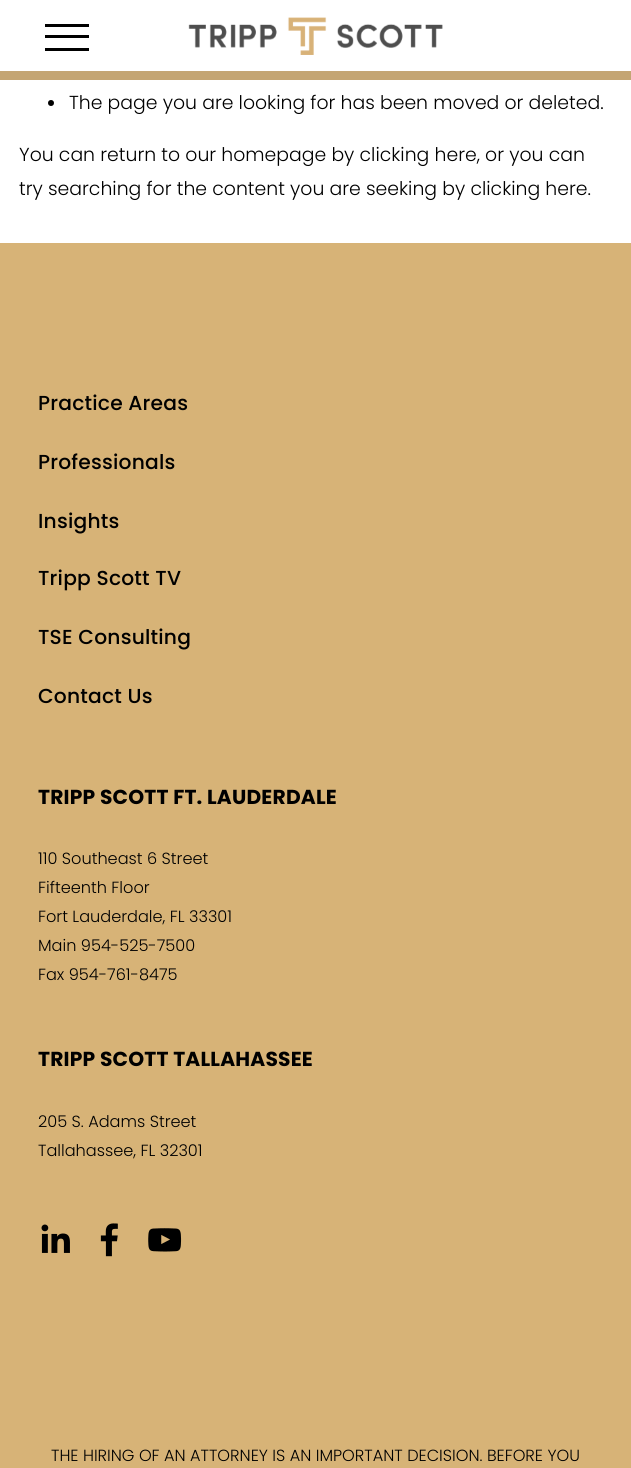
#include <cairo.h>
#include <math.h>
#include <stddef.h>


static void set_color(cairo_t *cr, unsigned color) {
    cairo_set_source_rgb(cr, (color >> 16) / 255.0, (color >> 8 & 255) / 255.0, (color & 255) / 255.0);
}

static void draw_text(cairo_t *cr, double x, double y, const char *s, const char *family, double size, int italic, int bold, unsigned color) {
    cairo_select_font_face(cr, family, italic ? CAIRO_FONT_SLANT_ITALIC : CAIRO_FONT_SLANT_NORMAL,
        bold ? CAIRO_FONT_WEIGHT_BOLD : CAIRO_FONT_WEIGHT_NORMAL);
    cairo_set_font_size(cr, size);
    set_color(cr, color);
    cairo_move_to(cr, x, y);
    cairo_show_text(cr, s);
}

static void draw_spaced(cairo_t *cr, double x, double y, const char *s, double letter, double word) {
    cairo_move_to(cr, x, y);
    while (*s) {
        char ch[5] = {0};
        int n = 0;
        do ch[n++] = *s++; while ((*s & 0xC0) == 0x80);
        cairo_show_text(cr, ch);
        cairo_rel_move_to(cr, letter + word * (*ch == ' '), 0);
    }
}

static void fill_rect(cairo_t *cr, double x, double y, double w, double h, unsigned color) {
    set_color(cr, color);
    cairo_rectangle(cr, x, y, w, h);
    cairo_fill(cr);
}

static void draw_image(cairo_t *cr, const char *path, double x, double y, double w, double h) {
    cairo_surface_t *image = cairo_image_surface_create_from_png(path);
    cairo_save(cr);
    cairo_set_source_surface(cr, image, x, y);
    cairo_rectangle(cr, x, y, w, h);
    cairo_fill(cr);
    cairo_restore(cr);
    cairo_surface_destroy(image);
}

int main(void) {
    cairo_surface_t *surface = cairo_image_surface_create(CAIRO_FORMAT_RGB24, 631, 1468);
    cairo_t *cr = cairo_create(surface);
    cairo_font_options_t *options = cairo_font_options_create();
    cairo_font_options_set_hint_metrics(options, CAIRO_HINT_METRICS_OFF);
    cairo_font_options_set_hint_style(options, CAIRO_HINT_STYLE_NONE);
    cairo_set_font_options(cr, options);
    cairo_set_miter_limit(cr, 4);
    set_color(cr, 0xFFFFFF);
    cairo_paint(cr);
    fill_rect(cr, 0, 71, 631, 9, 0xC4A573);
    fill_rect(cr, 45, 24, 44, 3, 0x000000);
    fill_rect(cr, 45, 35, 44, 3, 0x000000);
    fill_rect(cr, 45, 48, 44, 3, 0x000000);
    draw_image(cr, "assets/img1.png", 188, 17, 255, 38);
    cairo_arc(cr, 51, 103, 3, 0, 2 * M_PI);
    cairo_fill(cr);
    draw_text(cr, 69, 109, "The page you are looking for has been moved or deleted.", "Poppins Light", 18.85, 0, 0, 0x000000);
    draw_text(cr, 19, 161, "You can return to our homepage by clicking here, or you can", "Poppins Light", 18.85, 0, 0, 0x000000);
    draw_text(cr, 19, 195, "try searching for the content you are seeking by clicking here.", "Poppins Light", 18.85, 0, 0, 0x000000);
    fill_rect(cr, 0, 243, 631, 1225, 0xD7B377);
    cairo_select_font_face(cr, "Poppins Medium", CAIRO_FONT_SLANT_NORMAL, CAIRO_FONT_WEIGHT_NORMAL);
    cairo_set_font_size(cr, 20.25);
    set_color(cr, 0x000000);
    draw_spaced(cr, 38, 410, "Practice Areas", 0.2, 0);
    draw_spaced(cr, 38, 469, "Professionals", 0.2, 0);
    draw_spaced(cr, 38, 528, "Insights", 0.2, 0);
    draw_spaced(cr, 38, 585, "Tripp Scott TV", 0.2, 0);
    draw_spaced(cr, 38, 644, "TSE Consulting", 0.2, 0);
    draw_spaced(cr, 38, 703, "Contact Us", 0.2, 0);
    cairo_select_font_face(cr, "Poppins", CAIRO_FONT_SLANT_NORMAL, CAIRO_FONT_WEIGHT_BOLD);
    draw_spaced(cr, 38, 804, "TRIPP SCOTT FT. LAUDERDALE", 0.2, 0);
    draw_text(cr, 38, 864, "110 Southeast 6 Street", "Poppins Light", 16.15, 0, 0, 0x000000);
    draw_text(cr, 38, 893, "Fifteenth Floor", "Poppins Light", 16.15, 0, 0, 0x000000);
    draw_text(cr, 38, 922, "Fort Lauderdale, FL 33301", "Poppins Light", 16.15, 0, 0, 0x000000);
    draw_text(cr, 38, 951, "Main 954-525-7500", "Poppins Light", 16.15, 0, 0, 0x000000);
    draw_text(cr, 38, 980, "Fax 954-761-8475", "Poppins Light", 16.15, 0, 0, 0x000000);
    cairo_select_font_face(cr, "Poppins", CAIRO_FONT_SLANT_NORMAL, CAIRO_FONT_WEIGHT_BOLD);
    cairo_set_font_size(cr, 20.25);
    draw_spaced(cr, 38, 1066, "TRIPP SCOTT TALLAHASSEE", 0.2, 0);
    draw_text(cr, 38, 1127, "205 S. Adams Street", "Poppins Light", 16.15, 0, 0, 0x000000);
    draw_text(cr, 38, 1156, "Tallahassee, FL 32301", "Poppins Light", 16.15, 0, 0, 0x000000);
    draw_image(cr, "assets/img2.png", 41, 1224, 29, 29);
    draw_image(cr, "assets/img3.png", 100, 1223, 18, 34);
    draw_image(cr, "assets/img4.png", 148, 1228, 34, 24);
    draw_text(cr, 51, 1461, "THE HIRING OF AN ATTORNEY IS AN IMPORTANT DECISION. BEFORE YOU", "Poppins Light", 16.15, 0, 0, 0x000000);
    cairo_surface_write_to_png(surface, "output.png");
    cairo_font_options_destroy(options);
    cairo_destroy(cr);
    cairo_surface_destroy(surface);
    return 0;
}
